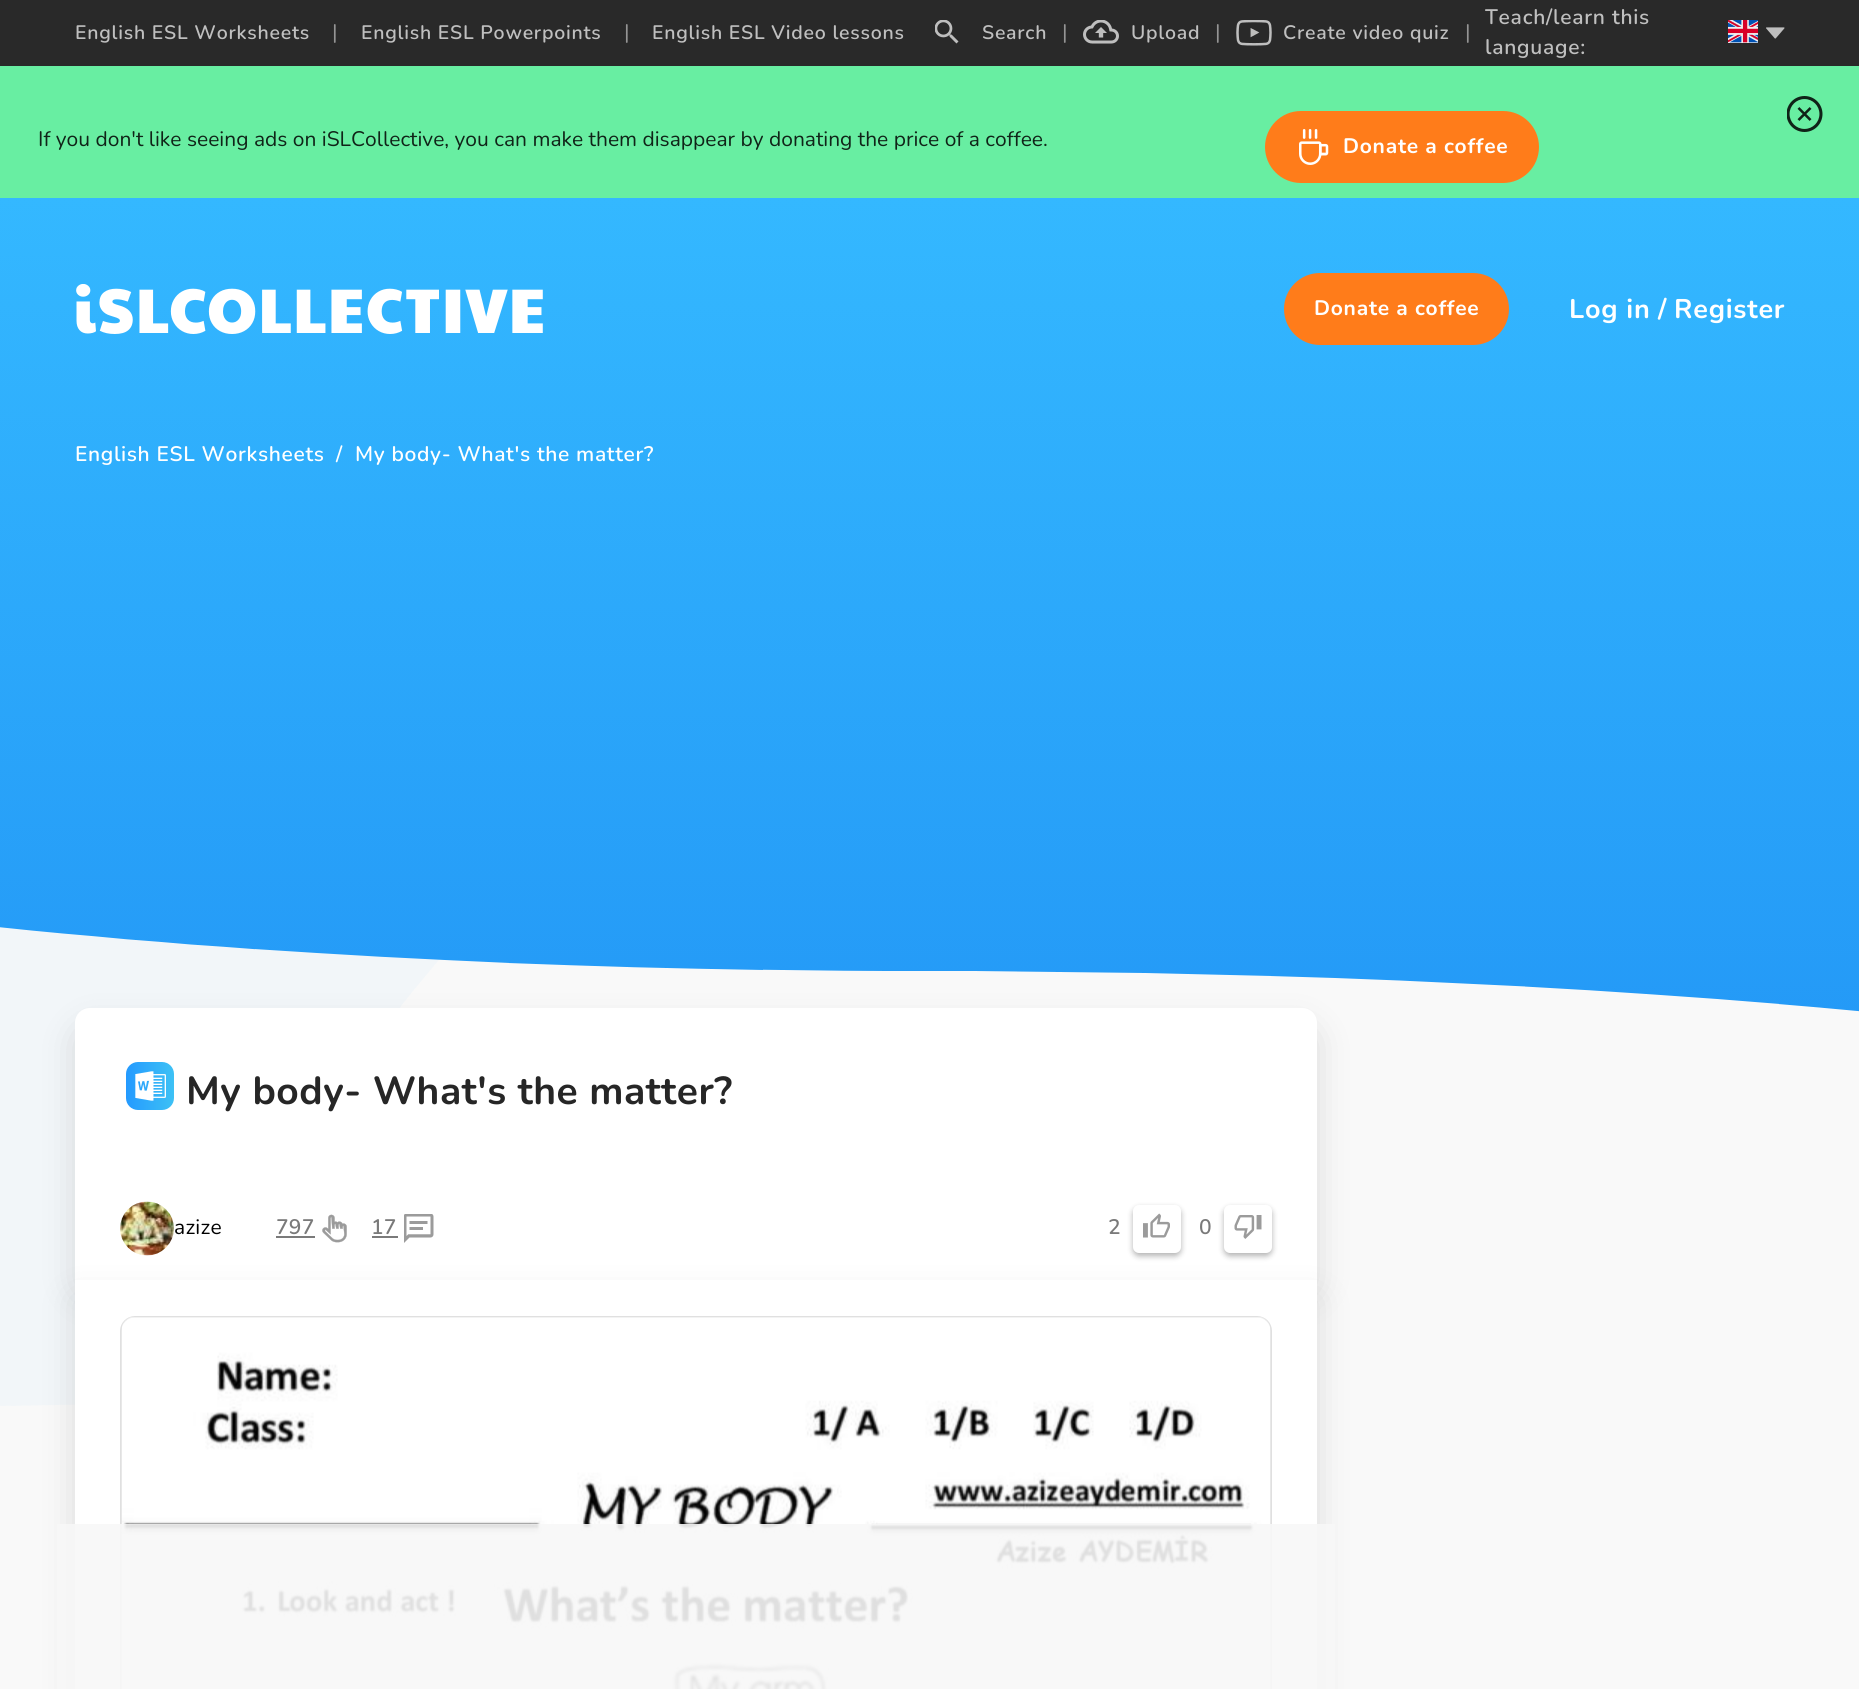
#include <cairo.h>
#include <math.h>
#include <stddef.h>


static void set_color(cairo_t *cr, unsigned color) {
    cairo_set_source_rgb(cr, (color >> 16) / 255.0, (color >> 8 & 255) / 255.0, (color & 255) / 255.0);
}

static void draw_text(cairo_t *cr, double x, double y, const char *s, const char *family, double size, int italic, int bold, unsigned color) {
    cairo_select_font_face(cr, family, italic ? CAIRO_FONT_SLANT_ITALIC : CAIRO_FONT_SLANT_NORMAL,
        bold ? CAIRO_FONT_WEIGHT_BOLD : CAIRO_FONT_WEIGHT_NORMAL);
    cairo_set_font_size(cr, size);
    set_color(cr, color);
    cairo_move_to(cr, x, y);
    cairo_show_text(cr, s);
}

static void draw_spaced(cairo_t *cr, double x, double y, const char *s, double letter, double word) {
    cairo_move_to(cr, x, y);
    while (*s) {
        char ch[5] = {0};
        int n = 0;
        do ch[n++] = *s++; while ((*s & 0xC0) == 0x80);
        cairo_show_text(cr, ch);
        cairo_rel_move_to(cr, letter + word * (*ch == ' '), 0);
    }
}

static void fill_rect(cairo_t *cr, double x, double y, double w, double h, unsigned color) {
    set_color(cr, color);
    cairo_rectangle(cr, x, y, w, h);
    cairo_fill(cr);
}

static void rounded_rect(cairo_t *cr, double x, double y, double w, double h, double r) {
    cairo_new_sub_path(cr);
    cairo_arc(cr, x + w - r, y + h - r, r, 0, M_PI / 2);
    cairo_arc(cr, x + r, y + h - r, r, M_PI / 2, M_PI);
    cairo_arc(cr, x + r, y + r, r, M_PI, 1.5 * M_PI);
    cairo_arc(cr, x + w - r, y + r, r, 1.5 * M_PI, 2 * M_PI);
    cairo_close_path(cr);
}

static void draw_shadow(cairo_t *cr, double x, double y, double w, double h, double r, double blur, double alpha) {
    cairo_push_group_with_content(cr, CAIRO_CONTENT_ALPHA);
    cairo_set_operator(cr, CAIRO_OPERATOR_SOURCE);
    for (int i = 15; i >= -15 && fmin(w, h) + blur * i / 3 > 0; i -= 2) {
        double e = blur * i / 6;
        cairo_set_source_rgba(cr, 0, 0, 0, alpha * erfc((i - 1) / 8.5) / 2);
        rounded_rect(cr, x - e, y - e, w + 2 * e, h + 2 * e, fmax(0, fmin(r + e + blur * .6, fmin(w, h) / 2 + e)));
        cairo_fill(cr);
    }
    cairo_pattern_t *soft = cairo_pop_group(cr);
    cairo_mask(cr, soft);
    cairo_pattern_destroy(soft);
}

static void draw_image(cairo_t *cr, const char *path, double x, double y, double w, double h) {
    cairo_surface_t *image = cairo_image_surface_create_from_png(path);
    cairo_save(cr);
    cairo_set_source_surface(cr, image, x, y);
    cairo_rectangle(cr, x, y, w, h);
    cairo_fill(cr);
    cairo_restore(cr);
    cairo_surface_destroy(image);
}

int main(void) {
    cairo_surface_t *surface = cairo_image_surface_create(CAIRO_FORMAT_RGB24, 1859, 1689);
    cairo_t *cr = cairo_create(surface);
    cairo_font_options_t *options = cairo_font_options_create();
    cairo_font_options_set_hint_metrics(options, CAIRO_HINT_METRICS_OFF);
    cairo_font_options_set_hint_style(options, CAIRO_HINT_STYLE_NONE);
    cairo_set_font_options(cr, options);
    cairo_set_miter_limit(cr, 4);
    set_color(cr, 0xF9F9F9);
    cairo_paint(cr);
    fill_rect(cr, 0, 0, 1859, 66, 0x292929);
    cairo_select_font_face(cr, "Nunito ExtraLight", CAIRO_FONT_SLANT_NORMAL, CAIRO_FONT_WEIGHT_NORMAL);
    cairo_set_font_size(cr, 19.5);
    set_color(cr, 0xBFBFBF);
    draw_spaced(cr, 75, 39, "English ESL Worksheets", 0.75, 0);
    draw_text(cr, 332, 39, "|", "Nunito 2 ExtraLight", 21, 0, 0, 0x949494);
    cairo_select_font_face(cr, "Nunito ExtraLight", CAIRO_FONT_SLANT_NORMAL, CAIRO_FONT_WEIGHT_NORMAL);
    cairo_set_font_size(cr, 19.5);
    set_color(cr, 0xBFBFBF);
    draw_spaced(cr, 361, 39, "English ESL Powerpoints", 0.75, 0);
    draw_text(cr, 624, 39, "|", "Nunito 2 ExtraLight", 21, 0, 0, 0x949494);
    cairo_select_font_face(cr, "Nunito ExtraLight", CAIRO_FONT_SLANT_NORMAL, CAIRO_FONT_WEIGHT_NORMAL);
    cairo_set_font_size(cr, 19.5);
    set_color(cr, 0xBFBFBF);
    draw_spaced(cr, 652, 39, "English ESL Video lessons", 0.75, 0);
    draw_image(cr, "assets/img1.png", 935, 20, 24, 24);
    draw_spaced(cr, 982, 39, "Search", 0.75, 0);
    draw_text(cr, 1062, 39, "|", "Nunito 2 ExtraLight", 21, 0, 0, 0x949494);
    draw_image(cr, "assets/img2.png", 1083, 20, 36, 24);
    cairo_select_font_face(cr, "Nunito ExtraLight", CAIRO_FONT_SLANT_NORMAL, CAIRO_FONT_WEIGHT_NORMAL);
    cairo_set_font_size(cr, 19.5);
    set_color(cr, 0xBFBFBF);
    draw_spaced(cr, 1131, 39, "Upload", 0.75, 0);
    draw_text(cr, 1215, 39, "|", "Nunito 2 ExtraLight", 21, 0, 0, 0x949494);
    draw_image(cr, "assets/img3.png", 1236, 20, 36, 26);
    cairo_select_font_face(cr, "Nunito ExtraLight", CAIRO_FONT_SLANT_NORMAL, CAIRO_FONT_WEIGHT_NORMAL);
    cairo_set_font_size(cr, 19.5);
    set_color(cr, 0xBFBFBF);
    draw_spaced(cr, 1283, 39, "Create video quiz", 0.75, 0);
    draw_text(cr, 1465, 39, "|", "Nunito 2 ExtraLight", 21, 0, 0, 0x949494);
    cairo_select_font_face(cr, "Nunito ExtraLight", CAIRO_FONT_SLANT_NORMAL, CAIRO_FONT_WEIGHT_NORMAL);
    set_color(cr, 0xBFBFBF);
    draw_spaced(cr, 1485, 24, "Teach/learn this", 0.75, 0);
    draw_spaced(cr, 1485, 54, "language:", 0.75, 0);
    draw_image(cr, "assets/img4.png", 1728, 20, 30, 23);
    draw_image(cr, "assets/img5.png", 1766, 27, 19, 12);
    fill_rect(cr, 0, 66, 1859, 132, 0x68EEA2);
    draw_image(cr, "assets/img6.png", 1787, 96, 36, 36);
    draw_text(cr, 38, 146, "If you don't like seeing ads on iSLCollective, you can make them disappear by donating the price of a coffee.", "Nunito 2 ExtraLight", 21, 0, 0, 0x102418);
    set_color(cr, 0xFF7C1A);
    rounded_rect(cr, 1265, 111, 274, 72, 36);
    cairo_fill(cr);
    draw_image(cr, "assets/img7.png", 1299, 129, 30, 36);
    cairo_select_font_face(cr, "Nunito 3 ExtraLight", CAIRO_FONT_SLANT_NORMAL, CAIRO_FONT_WEIGHT_NORMAL);
    set_color(cr, 0xFFFFFF);
    draw_spaced(cr, 1343, 153, "Donate a coffee", 0.75, 0);
    draw_image(cr, "assets/img8.png", 0, 927, 440, 479);
    draw_image(cr, "assets/img9.png", 0, 198, 1859, 814);
    draw_image(cr, "assets/img10.png", 76, 284, 467, 50);
    set_color(cr, 0xFF7C1A);
    rounded_rect(cr, 1284, 273, 225, 72, 36);
    cairo_fill(cr);
    set_color(cr, 0xFFFFFF);
    draw_spaced(cr, 1314, 315, "Donate a coffee", 0.75, 0);
    cairo_set_font_size(cr, 27);
    draw_spaced(cr, 1569, 318, "Log in", 0.75, 0);
    draw_spaced(cr, 1658, 318, "/", 0.75, 0);
    draw_spaced(cr, 1674, 318, "Register", 0.75, 0);
    cairo_select_font_face(cr, "Nunito ExtraLight", CAIRO_FONT_SLANT_NORMAL, CAIRO_FONT_WEIGHT_NORMAL);
    cairo_set_font_size(cr, 21);
    draw_spaced(cr, 75, 461, "English ESL Worksheets", 0.65, 0);
    draw_spaced(cr, 336, 461, "/", 0.65, 0);
    draw_spaced(cr, 355, 461, "My body- What's the matter?", 0.65, 0);
    set_color(cr, 0x000000);
    draw_shadow(cr, 75, 1026, 1242, 272, 15, 18, 0.12);
    set_color(cr, 0xFFFFFF);
    cairo_new_path(cr);
    cairo_move_to(cr, 90, 1008);
    cairo_line_to(cr, 1302, 1008);
    cairo_curve_to(cr, 1310.5, 1008, 1317, 1014.5, 1317, 1023);
    cairo_line_to(cr, 1317, 1280);
    cairo_line_to(cr, 75, 1280);
    cairo_line_to(cr, 75, 1023);
    cairo_curve_to(cr, 75, 1014.5, 81.5, 1008, 90, 1008);
    cairo_close_path(cr);
    cairo_fill(cr);
    draw_image(cr, "assets/img11.png", 126, 1062, 48, 48);
    cairo_select_font_face(cr, "Nunito 3 ExtraLight", CAIRO_FONT_SLANT_NORMAL, CAIRO_FONT_WEIGHT_NORMAL);
    cairo_set_font_size(cr, 39);
    set_color(cr, 0x262626);
    draw_spaced(cr, 186, 1104, "My body- What's the matter?", 0.5, 0);
    draw_image(cr, "assets/img12.png", 120, 1201, 54, 55);
    cairo_select_font_face(cr, "Nunito 2 ExtraLight", CAIRO_FONT_SLANT_NORMAL, CAIRO_FONT_WEIGHT_NORMAL);
    cairo_set_font_size(cr, 21);
    set_color(cr, 0x000000);
    draw_spaced(cr, 174, 1234, "azize", 0.25, 0);
    cairo_select_font_face(cr, "Nunito ExtraLight", CAIRO_FONT_SLANT_NORMAL, CAIRO_FONT_WEIGHT_NORMAL);
    set_color(cr, 0x7A7A7A);
    draw_spaced(cr, 276, 1234, "797", 0.25, 0);
    fill_rect(cr, 276, 1236, 39, 2, 0x7A7A7A);
    draw_image(cr, "assets/img13.png", 322, 1214, 25, 29);
    draw_spaced(cr, 371, 1234, "17", 0.25, 0);
    fill_rect(cr, 372, 1236, 26, 2, 0x7A7A7A);
    draw_image(cr, "assets/img14.png", 404, 1214, 30, 29);
    draw_spaced(cr, 1108, 1234, "2", 0.25, 0);
    set_color(cr, 0x000000);
    draw_shadow(cr, 1133, 1208, 48, 48, 6, 3, 0.3);
    set_color(cr, 0xFFFFFF);
    rounded_rect(cr, 1133, 1205, 48, 48, 6);
    cairo_fill(cr);
    draw_image(cr, "assets/img15.png", 1143, 1213, 27, 25);
    set_color(cr, 0x7A7A7A);
    draw_spaced(cr, 1199, 1234, "0", 0.25, 0);
    set_color(cr, 0x000000);
    draw_shadow(cr, 1224, 1208, 48, 48, 6, 3, 0.3);
    set_color(cr, 0xFFFFFF);
    rounded_rect(cr, 1224, 1205, 48, 48, 6);
    cairo_fill(cr);
    draw_image(cr, "assets/img16.png", 1234, 1215, 28, 24);
    set_color(cr, 0x000000);
    draw_shadow(cr, 75, 1298, 1242, 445, 0, 18, 0.12);
    fill_rect(cr, 75, 1280, 1242, 409, 0xFFFFFF);
    rounded_rect(cr, 121, 1317, 1150, 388, 14);
    set_color(cr, 0xE0E0E0);
    cairo_stroke(cr);
    draw_image(cr, "assets/img17.png", 121, 1317, 1150, 372);
    cairo_set_source_rgba(cr, 0.969, 0.969, 0.969, 0.9);
    cairo_rectangle(cr, 57, 1524, 1278, 165);
    cairo_fill(cr);
    cairo_surface_write_to_png(surface, "output.png");
    cairo_font_options_destroy(options);
    cairo_destroy(cr);
    cairo_surface_destroy(surface);
    return 0;
}
